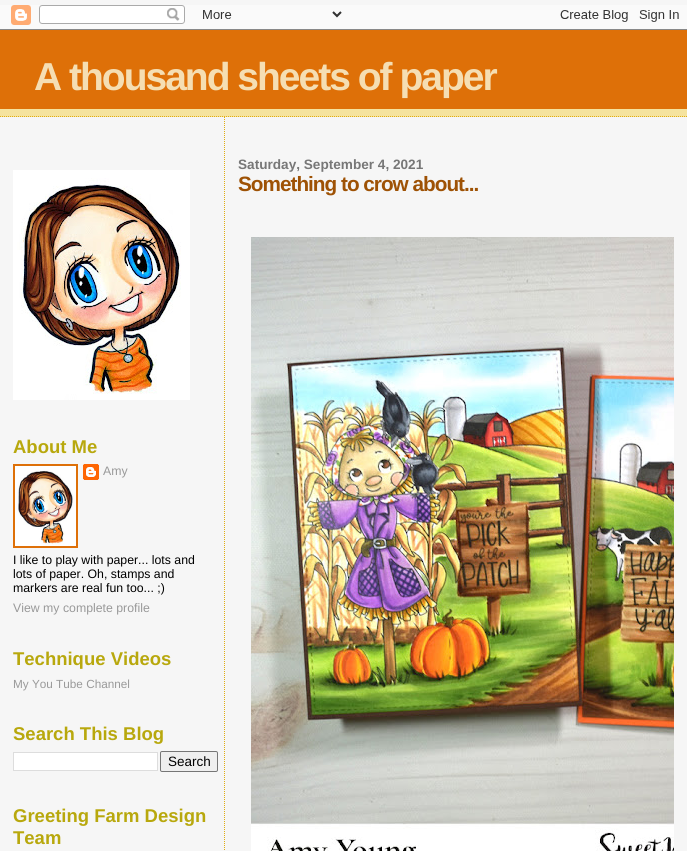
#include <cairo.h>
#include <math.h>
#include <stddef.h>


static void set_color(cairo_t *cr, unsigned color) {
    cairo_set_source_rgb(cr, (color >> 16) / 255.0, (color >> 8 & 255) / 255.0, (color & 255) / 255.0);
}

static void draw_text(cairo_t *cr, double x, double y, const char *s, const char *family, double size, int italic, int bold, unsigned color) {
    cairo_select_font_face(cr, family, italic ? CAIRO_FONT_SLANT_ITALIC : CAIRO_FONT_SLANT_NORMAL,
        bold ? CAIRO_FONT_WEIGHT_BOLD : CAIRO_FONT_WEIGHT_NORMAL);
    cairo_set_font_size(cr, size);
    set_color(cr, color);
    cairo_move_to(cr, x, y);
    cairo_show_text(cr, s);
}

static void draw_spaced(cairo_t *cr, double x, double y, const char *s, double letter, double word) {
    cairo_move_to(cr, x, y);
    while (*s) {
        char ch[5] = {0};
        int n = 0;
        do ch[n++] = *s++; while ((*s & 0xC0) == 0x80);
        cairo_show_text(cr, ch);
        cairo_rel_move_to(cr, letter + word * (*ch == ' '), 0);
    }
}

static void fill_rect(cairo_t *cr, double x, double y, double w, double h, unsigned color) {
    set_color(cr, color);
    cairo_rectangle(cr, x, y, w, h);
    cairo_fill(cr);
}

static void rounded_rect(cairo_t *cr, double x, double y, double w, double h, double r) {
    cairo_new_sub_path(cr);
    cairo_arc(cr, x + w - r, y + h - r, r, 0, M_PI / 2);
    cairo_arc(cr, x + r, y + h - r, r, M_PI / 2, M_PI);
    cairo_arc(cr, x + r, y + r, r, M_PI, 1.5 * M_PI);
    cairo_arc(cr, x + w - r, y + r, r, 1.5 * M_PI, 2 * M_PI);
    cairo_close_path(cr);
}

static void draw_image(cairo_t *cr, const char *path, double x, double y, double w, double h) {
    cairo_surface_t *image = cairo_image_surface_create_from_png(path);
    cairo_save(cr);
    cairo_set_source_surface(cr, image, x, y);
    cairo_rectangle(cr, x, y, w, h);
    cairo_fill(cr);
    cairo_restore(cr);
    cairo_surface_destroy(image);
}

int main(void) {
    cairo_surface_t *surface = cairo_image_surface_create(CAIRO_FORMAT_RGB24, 687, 851);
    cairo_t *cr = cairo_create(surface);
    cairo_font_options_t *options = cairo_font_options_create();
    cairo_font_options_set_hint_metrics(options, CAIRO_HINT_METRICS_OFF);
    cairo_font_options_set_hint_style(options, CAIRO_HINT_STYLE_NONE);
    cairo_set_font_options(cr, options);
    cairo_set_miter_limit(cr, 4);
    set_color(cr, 0xF6F6F6);
    cairo_paint(cr);
    draw_image(cr, "assets/img1.png", 0, 5, 687, 25);
    fill_rect(cr, 0, 109, 687, 8, 0xF5E39E);
    cairo_new_path(cr);
    cairo_move_to(cr, 0, 116.5);
    cairo_line_to(cr, 687, 116.5);
    set_color(cr, 0xE0AD12);
    cairo_set_line_width(cr, 1);
    cairo_set_dash(cr, (double[]){1, 1}, 2, 0);
    cairo_stroke(cr);
    fill_rect(cr, 0, 30, 687, 79, 0xDE7008);
    cairo_select_font_face(cr, "Liberation Sans", CAIRO_FONT_SLANT_NORMAL, CAIRO_FONT_WEIGHT_BOLD);
    cairo_set_font_size(cr, 39);
    set_color(cr, 0xF5DEB3);
    draw_spaced(cr, 34, 90, "A thousand sheets of paper", -2, 0);
    cairo_new_path(cr);
    cairo_move_to(cr, 224.5, 117);
    cairo_line_to(cr, 224.5, 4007);
    set_color(cr, 0xE0AD12);
    cairo_stroke(cr);
    draw_text(cr, 238, 169, "Saturday, September 4, 2021", "Liberation Sans", 13.6, 0, 1, 0x777777);
    cairo_set_font_size(cr, 20.75);
    set_color(cr, 0x9E5205);
    draw_spaced(cr, 238, 191, "Something to crow about...", -1, 0);
    draw_image(cr, "assets/img2.png", 251, 237, 423, 614);
    draw_image(cr, "assets/img3.png", 13, 170, 177, 230);
    draw_text(cr, 13, 453, "About Me", "Liberation Sans", 18.5, 0, 1, 0xB8A80D);
    cairo_rectangle(cr, 14, 465, 63, 82);
    set_color(cr, 0xDE7008);
    cairo_set_line_width(cr, 2);
    cairo_set_dash(cr, NULL, 0, 0);
    cairo_stroke(cr);
    draw_image(cr, "assets/img4.png", 15, 466, 61, 80);
    draw_image(cr, "assets/img5.png", 83, 464, 16, 16);
    draw_text(cr, 103, 475, "Amy", "Liberation Sans", 12.3, 0, 0, 0x999999);
    draw_text(cr, 13, 564, "I like to play with paper... lots and", "Liberation Sans", 12.3, 0, 0, 0x000000);
    draw_text(cr, 13, 578, "lots of paper. Oh, stamps and", "Liberation Sans", 12.3, 0, 0, 0x000000);
    draw_text(cr, 13, 592, "markers are real fun too... ;)", "Liberation Sans", 12.3, 0, 0, 0x000000);
    draw_text(cr, 13, 612, "View my complete profile", "Liberation Sans", 12.3, 0, 0, 0x999999);
    draw_text(cr, 13, 665, "Technique Videos", "Liberation Sans", 18.5, 0, 1, 0xB8A80D);
    draw_text(cr, 13, 688, "My You Tube Channel", "Liberation Sans", 11.75, 0, 0, 0x999999);
    draw_text(cr, 13, 740, "Search This Blog", "Liberation Sans", 18.5, 0, 1, 0xB8A80D);
    set_color(cr, 0xFFFFFF);
    cairo_rectangle(cr, 13.5, 752.5, 144, 18);
    cairo_fill_preserve(cr);
    set_color(cr, 0xDDDDDD);
    cairo_set_line_width(cr, 1);
    cairo_stroke(cr);
    set_color(cr, 0xEFEFEF);
    rounded_rect(cr, 160.5, 751.5, 57, 20, 1.5);
    cairo_fill_preserve(cr);
    set_color(cr, 0x767676);
    cairo_stroke(cr);
    draw_text(cr, 168, 766, "Search", "Liberation Sans", 13.5, 0, 0, 0x000000);
    draw_text(cr, 13, 822, "Greeting Farm Design", "Liberation Sans", 18.5, 0, 1, 0xB8A80D);
    draw_text(cr, 13, 844, "Team", "Liberation Sans", 18.5, 0, 1, 0xB8A80D);
    cairo_surface_write_to_png(surface, "output.png");
    cairo_font_options_destroy(options);
    cairo_destroy(cr);
    cairo_surface_destroy(surface);
    return 0;
}
